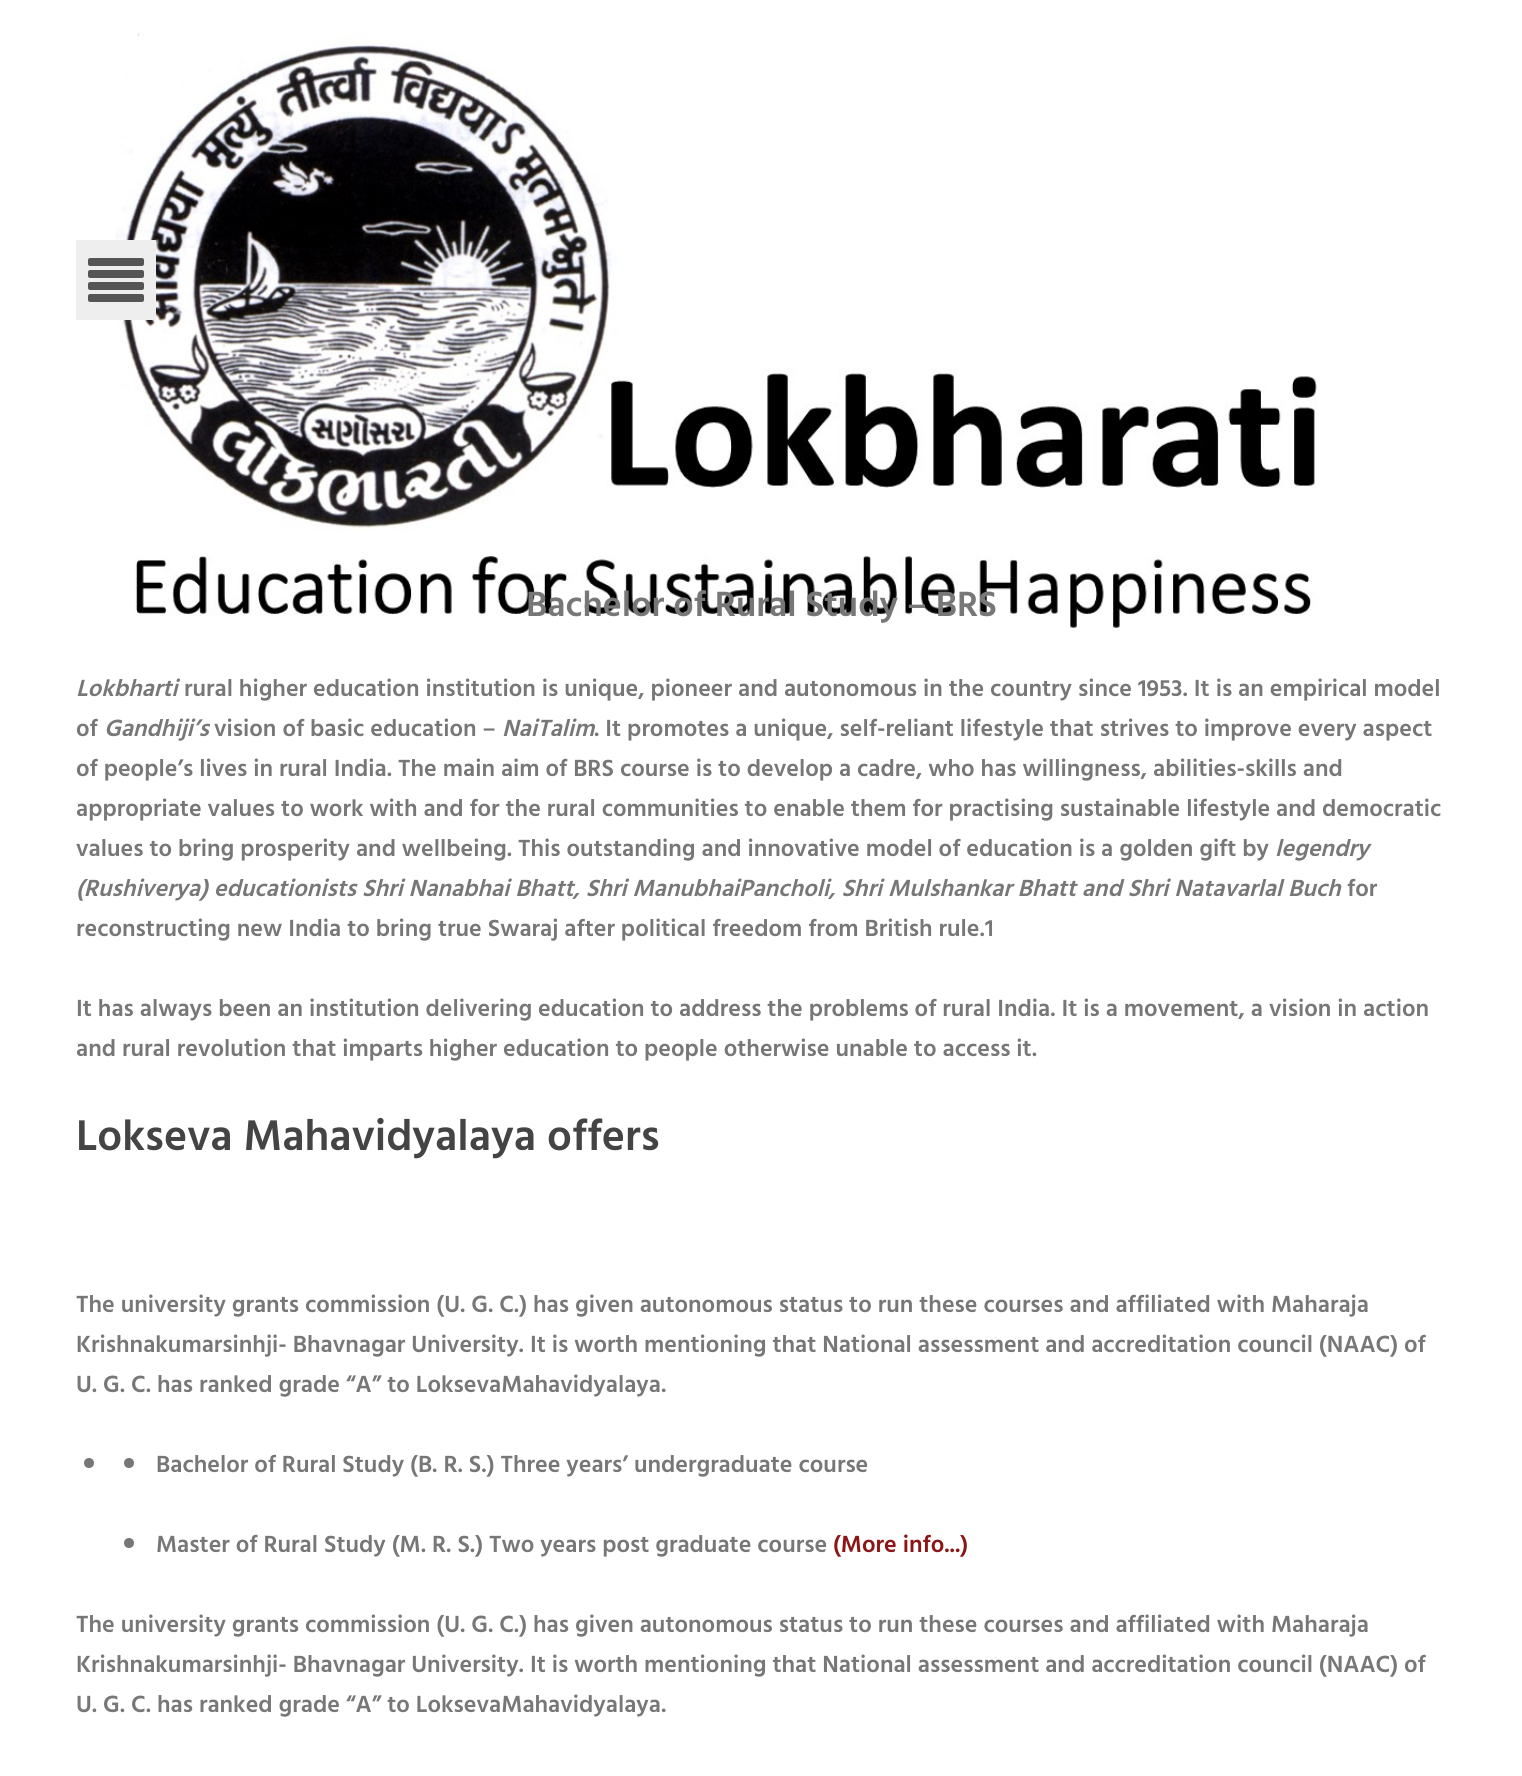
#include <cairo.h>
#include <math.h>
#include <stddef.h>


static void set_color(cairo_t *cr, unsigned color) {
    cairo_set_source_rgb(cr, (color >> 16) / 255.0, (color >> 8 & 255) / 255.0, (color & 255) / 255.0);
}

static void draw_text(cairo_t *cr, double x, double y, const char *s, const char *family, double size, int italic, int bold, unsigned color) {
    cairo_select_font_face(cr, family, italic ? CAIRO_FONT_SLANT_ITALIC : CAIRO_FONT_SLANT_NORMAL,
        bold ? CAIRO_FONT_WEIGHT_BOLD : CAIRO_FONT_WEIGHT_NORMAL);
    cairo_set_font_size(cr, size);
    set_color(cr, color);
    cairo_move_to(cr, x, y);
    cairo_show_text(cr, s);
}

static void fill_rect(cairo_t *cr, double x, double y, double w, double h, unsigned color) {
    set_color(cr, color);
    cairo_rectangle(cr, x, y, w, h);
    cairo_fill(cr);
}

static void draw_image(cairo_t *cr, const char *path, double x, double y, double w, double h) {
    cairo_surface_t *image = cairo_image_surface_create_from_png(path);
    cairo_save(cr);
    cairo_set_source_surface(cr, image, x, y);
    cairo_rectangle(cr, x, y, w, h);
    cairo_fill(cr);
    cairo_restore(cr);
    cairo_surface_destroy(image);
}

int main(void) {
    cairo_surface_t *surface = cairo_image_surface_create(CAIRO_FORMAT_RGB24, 1522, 1776);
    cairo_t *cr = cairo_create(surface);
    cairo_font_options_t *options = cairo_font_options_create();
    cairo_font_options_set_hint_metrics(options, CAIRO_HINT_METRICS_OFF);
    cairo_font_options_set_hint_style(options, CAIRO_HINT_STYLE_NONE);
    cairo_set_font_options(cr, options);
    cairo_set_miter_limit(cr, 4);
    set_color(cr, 0xFFFFFF);
    cairo_paint(cr);
    draw_image(cr, "assets/img1.png", 115, 32, 1202, 596);
    fill_rect(cr, 76, 240, 80, 80, 0xEEEEEE);
    draw_image(cr, "assets/img2.png", 88, 258, 56, 44);
    draw_text(cr, 526, 616, "Bachelor of Rural Study – BRS", "Hind Vadodara SemiBold", 36, 0, 0, 0x777777);
    draw_text(cr, 76, 696, "Lokbharti", "Hind Vadodara SemiBold", 24, 1, 0, 0x777777);
    draw_text(cr, 184, 696, "rural higher education institution is unique, pioneer and autonomous in the country since 1953. It is an empirical model", "Hind Vadodara SemiBold", 24, 0, 0, 0x777777);
    draw_text(cr, 76, 736, "of", "Hind Vadodara SemiBold", 24, 0, 0, 0x777777);
    draw_text(cr, 104, 736, "Gandhiji’s", "Hind Vadodara SemiBold", 24, 1, 0, 0x777777);
    draw_text(cr, 214, 736, "vision of basic education –", "Hind Vadodara SemiBold", 24, 0, 0, 0x777777);
    draw_text(cr, 502, 736, "NaiTalim", "Hind Vadodara SemiBold", 24, 1, 0, 0x777777);
    draw_text(cr, 594, 736, ". It promotes a unique, self-reliant lifestyle that strives to improve every aspect", "Hind Vadodara SemiBold", 24, 0, 0, 0x777777);
    draw_text(cr, 76, 776, "of people’s lives in rural India. The main aim of BRS course is to develop a cadre, who has willingness, abilities-skills and", "Hind Vadodara SemiBold", 24, 0, 0, 0x777777);
    draw_text(cr, 76, 816, "appropriate values to work with and for the rural communities to enable them for practising sustainable lifestyle and democratic", "Hind Vadodara SemiBold", 24, 0, 0, 0x777777);
    draw_text(cr, 76, 856, "values to bring prosperity and wellbeing. This outstanding and innovative model of education is a golden gift by", "Hind Vadodara SemiBold", 24, 0, 0, 0x777777);
    draw_text(cr, 1275, 856, "legendry", "Hind Vadodara SemiBold", 24, 1, 0, 0x777777);
    draw_text(cr, 76, 896, "(Rushiverya) educationists Shri Nanabhai Bhatt, Shri ManubhaiPancholi, Shri Mulshankar Bhatt and Shri Natavarlal Buch", "Hind Vadodara SemiBold", 24, 1, 0, 0x777777);
    draw_text(cr, 1347, 896, "for", "Hind Vadodara SemiBold", 24, 0, 0, 0x777777);
    draw_text(cr, 76, 936, "reconstructing new India to bring true Swaraj after political freedom from British rule.1", "Hind Vadodara SemiBold", 24, 0, 0, 0x777777);
    draw_text(cr, 76, 1016, "It has always been an institution delivering education to address the problems of rural India. It is a movement, a vision in action", "Hind Vadodara SemiBold", 24, 0, 0, 0x777777);
    draw_text(cr, 76, 1056, "and rural revolution that imparts higher education to people otherwise unable to access it.", "Hind Vadodara SemiBold", 24, 0, 0, 0x777777);
    draw_text(cr, 76, 1150, "Lokseva Mahavidyalaya offers", "Hind Vadodara SemiBold", 44, 0, 0, 0x444444);
    draw_text(cr, 76, 1312, "The university grants commission (U. G. C.) has given autonomous status to run these courses and affiliated with Maharaja", "Hind Vadodara SemiBold", 24, 0, 0, 0x777777);
    draw_text(cr, 76, 1352, "Krishnakumarsinhji- Bhavnagar University. It is worth mentioning that National assessment and accreditation council (NAAC) of", "Hind Vadodara SemiBold", 24, 0, 0, 0x777777);
    draw_text(cr, 76, 1392, "U. G. C. has ranked grade “A” to LoksevaMahavidyalaya.", "Hind Vadodara SemiBold", 24, 0, 0, 0x777777);
    cairo_new_path(cr);
    cairo_arc(cr, 89, 1463, 5, 0, 2 * M_PI);
    cairo_fill(cr);
    cairo_arc(cr, 129, 1463, 5, 0, 2 * M_PI);
    cairo_fill(cr);
    draw_text(cr, 156, 1472, "Bachelor of Rural Study (B. R. S.) Three years’ undergraduate course", "Hind Vadodara SemiBold", 24, 0, 0, 0x777777);
    cairo_new_path(cr);
    cairo_arc(cr, 129, 1543, 5, 0, 2 * M_PI);
    cairo_fill(cr);
    draw_text(cr, 156, 1552, "Master of Rural Study (M. R. S.) Two years post graduate course", "Hind Vadodara SemiBold", 24, 0, 0, 0x777777);
    draw_text(cr, 833, 1552, "(More info...)", "Hind Vadodara SemiBold", 24, 0, 0, 0x8C1515);
    draw_text(cr, 76, 1632, "The university grants commission (U. G. C.) has given autonomous status to run these courses and affiliated with Maharaja", "Hind Vadodara SemiBold", 24, 0, 0, 0x777777);
    draw_text(cr, 76, 1672, "Krishnakumarsinhji- Bhavnagar University. It is worth mentioning that National assessment and accreditation council (NAAC) of", "Hind Vadodara SemiBold", 24, 0, 0, 0x777777);
    draw_text(cr, 76, 1712, "U. G. C. has ranked grade “A” to LoksevaMahavidyalaya.", "Hind Vadodara SemiBold", 24, 0, 0, 0x777777);
    cairo_surface_write_to_png(surface, "output.png");
    cairo_font_options_destroy(options);
    cairo_destroy(cr);
    cairo_surface_destroy(surface);
    return 0;
}
